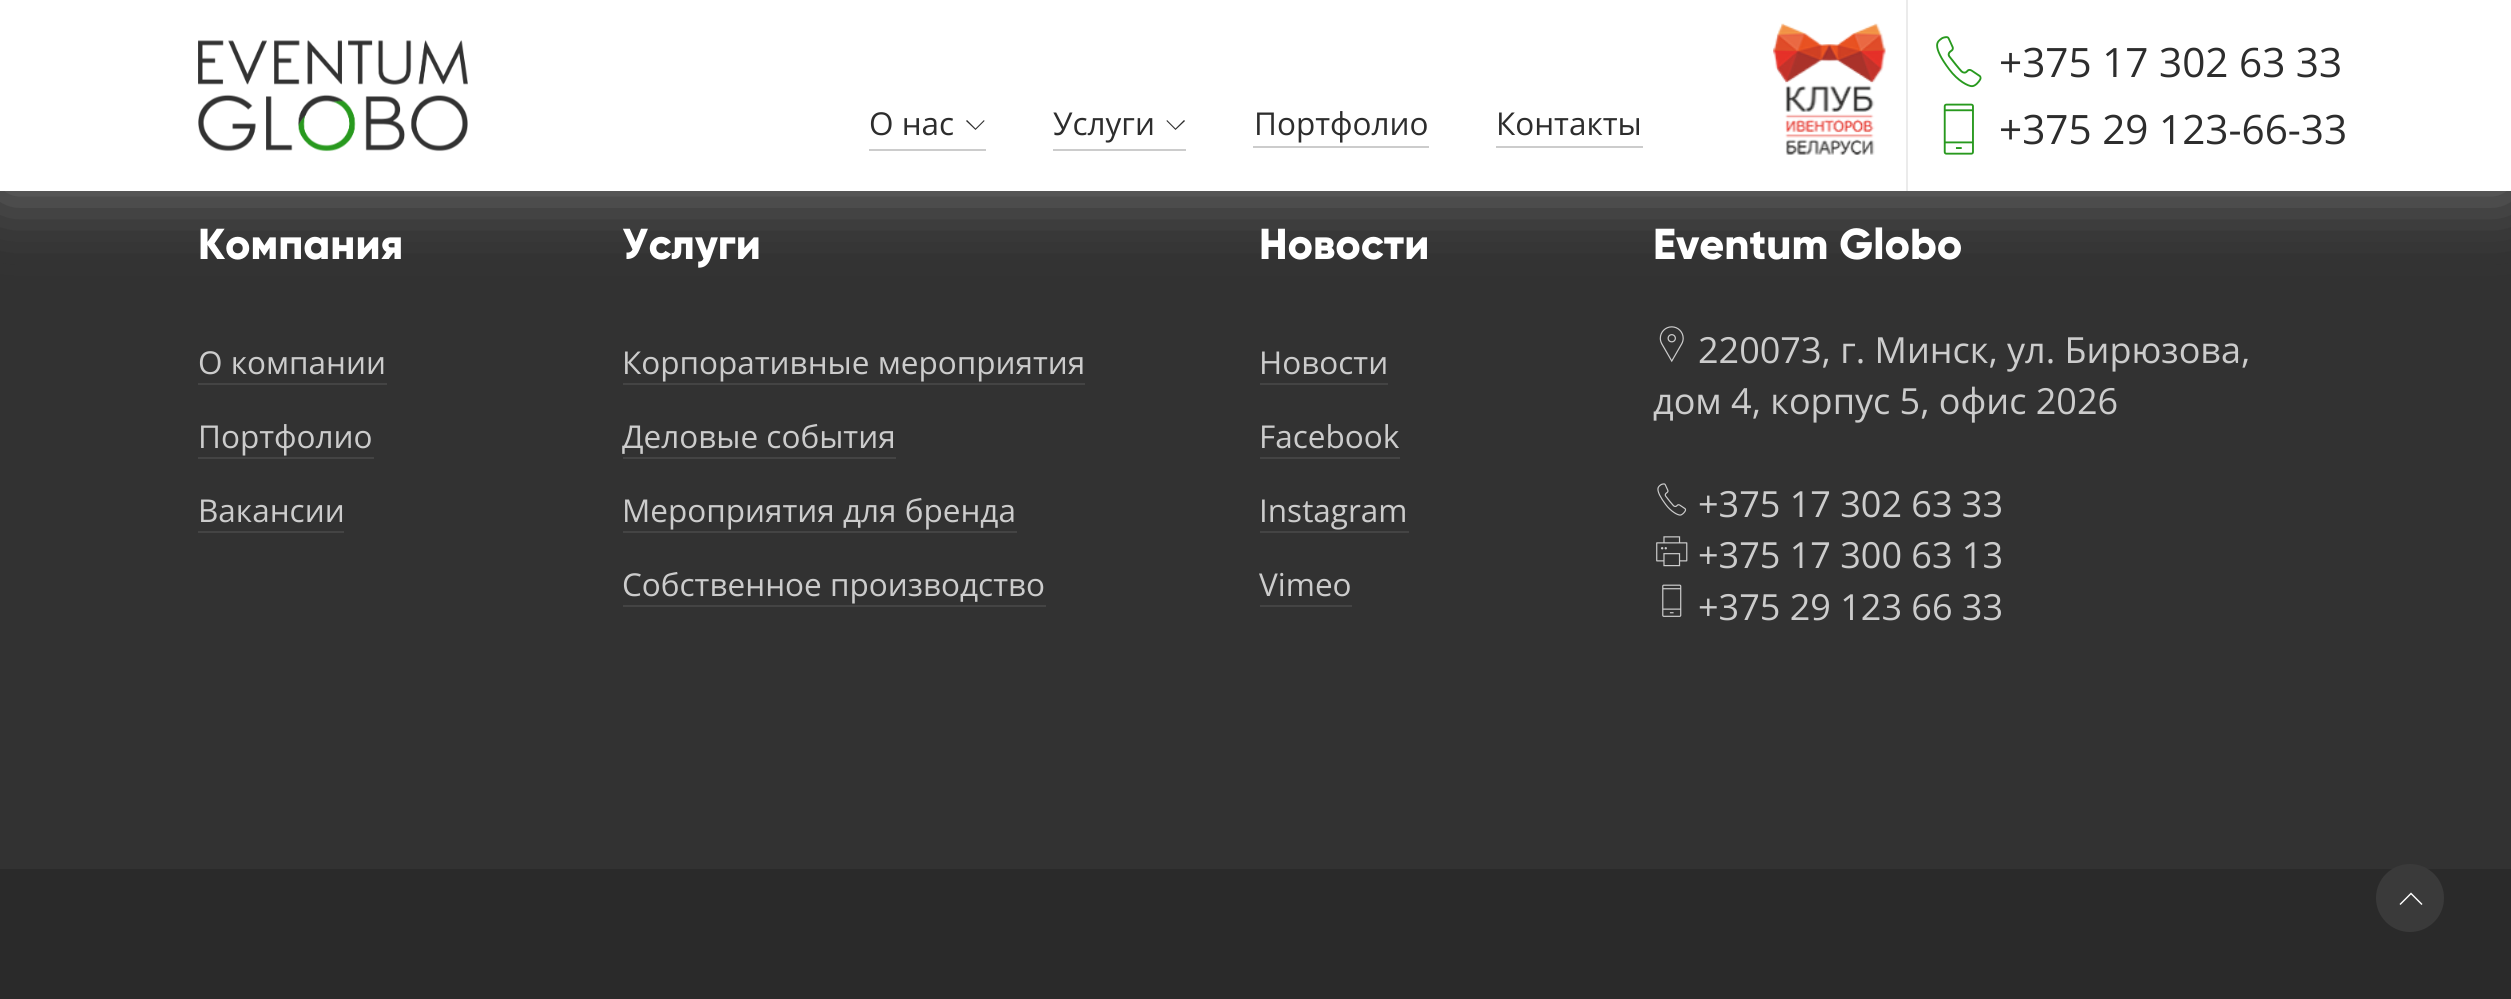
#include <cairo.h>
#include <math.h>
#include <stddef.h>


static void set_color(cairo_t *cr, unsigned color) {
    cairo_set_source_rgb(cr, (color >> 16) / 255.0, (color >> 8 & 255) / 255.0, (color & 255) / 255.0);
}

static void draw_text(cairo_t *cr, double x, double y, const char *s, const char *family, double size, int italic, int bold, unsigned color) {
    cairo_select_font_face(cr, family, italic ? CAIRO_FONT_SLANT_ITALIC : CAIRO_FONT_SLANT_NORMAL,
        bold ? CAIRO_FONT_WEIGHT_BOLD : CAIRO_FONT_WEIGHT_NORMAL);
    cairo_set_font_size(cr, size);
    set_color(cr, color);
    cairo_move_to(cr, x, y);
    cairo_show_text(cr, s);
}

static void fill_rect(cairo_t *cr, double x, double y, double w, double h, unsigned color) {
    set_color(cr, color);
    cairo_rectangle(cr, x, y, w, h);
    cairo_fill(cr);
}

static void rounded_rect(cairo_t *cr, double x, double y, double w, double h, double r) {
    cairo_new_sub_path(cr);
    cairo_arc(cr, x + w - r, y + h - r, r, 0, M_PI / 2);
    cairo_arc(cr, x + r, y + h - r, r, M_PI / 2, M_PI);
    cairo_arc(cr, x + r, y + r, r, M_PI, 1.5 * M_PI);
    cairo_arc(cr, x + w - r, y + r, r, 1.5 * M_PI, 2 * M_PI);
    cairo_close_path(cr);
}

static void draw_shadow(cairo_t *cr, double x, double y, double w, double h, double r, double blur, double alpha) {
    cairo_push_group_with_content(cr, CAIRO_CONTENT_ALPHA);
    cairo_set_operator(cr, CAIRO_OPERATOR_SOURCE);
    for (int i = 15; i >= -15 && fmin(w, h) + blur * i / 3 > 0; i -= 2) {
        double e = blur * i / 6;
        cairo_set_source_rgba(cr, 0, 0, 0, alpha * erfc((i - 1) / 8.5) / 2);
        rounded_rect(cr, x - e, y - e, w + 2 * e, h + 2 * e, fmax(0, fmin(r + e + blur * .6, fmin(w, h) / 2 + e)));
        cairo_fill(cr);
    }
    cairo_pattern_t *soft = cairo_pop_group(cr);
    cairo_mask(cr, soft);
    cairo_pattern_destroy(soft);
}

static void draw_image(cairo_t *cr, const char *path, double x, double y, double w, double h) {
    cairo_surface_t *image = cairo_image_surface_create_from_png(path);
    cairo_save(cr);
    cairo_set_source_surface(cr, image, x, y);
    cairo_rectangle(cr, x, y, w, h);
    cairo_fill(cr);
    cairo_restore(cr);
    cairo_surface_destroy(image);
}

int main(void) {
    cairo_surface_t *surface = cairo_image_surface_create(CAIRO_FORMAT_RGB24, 2511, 999);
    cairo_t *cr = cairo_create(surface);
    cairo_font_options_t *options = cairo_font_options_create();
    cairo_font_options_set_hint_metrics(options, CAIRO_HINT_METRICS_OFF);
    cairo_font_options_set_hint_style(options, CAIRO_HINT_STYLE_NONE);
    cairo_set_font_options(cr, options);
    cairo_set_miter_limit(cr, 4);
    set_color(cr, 0x323232);
    cairo_paint(cr);
    set_color(cr, 0x777777);
    draw_shadow(cr, 0, 0, 2511, 191, 0, 34, 1);
    fill_rect(cr, 0, 0, 2511, 191, 0xFFFFFF);
    draw_image(cr, "assets/img1.png", 198, 40, 270, 112);
    fill_rect(cr, 869, 149, 117, 2, 0xCCCCCC);
    draw_text(cr, 869, 135, "О нас", "Open Sans", 31.5, 0, 0, 0x2D2D2D);
    cairo_new_path(cr);
    cairo_move_to(cr, 984.5, 121);
    cairo_line_to(cr, 984, 120);
    cairo_line_to(cr, 975.5, 128.5);
    cairo_line_to(cr, 967, 120);
    cairo_line_to(cr, 966, 121);
    cairo_line_to(cr, 975.5, 130);
    cairo_close_path(cr);
    cairo_fill(cr);
    fill_rect(cr, 1053, 149, 133, 2, 0xCCCCCC);
    draw_text(cr, 1053, 135, "Услуги", "Open Sans", 31.5, 0, 0, 0x2D2D2D);
    cairo_new_path(cr);
    cairo_move_to(cr, 1185, 121);
    cairo_line_to(cr, 1184, 120);
    cairo_line_to(cr, 1175.5, 128.5);
    cairo_line_to(cr, 1167, 120);
    cairo_line_to(cr, 1166.5, 121);
    cairo_line_to(cr, 1175.5, 130);
    cairo_close_path(cr);
    cairo_fill(cr);
    fill_rect(cr, 1253, 146, 176, 2, 0xCCCCCC);
    draw_text(cr, 1254, 135, "Портфолио", "Open Sans", 31.5, 0, 0, 0x2D2D2D);
    fill_rect(cr, 1496, 146, 147, 2, 0xCCCCCC);
    draw_text(cr, 1496, 135, "Контакты", "Open Sans", 31.5, 0, 0, 0x2D2D2D);
    fill_rect(cr, 1906, 0, 2, 191, 0xEBEBEB);
    draw_image(cr, "assets/img2.png", 1773, 23, 113, 132);
    draw_image(cr, "assets/img3.png", 1936, 36, 46, 52);
    draw_text(cr, 1999, 77, "+375 17 302 63 33", "Open Sans", 40.5, 0, 0, 0x2D2D2D);
    draw_image(cr, "assets/img4.png", 1943, 103, 31, 52);
    draw_text(cr, 1999, 144, "+375 29 123-66-33", "Open Sans", 40.5, 0, 0, 0x2D2D2D);
    draw_text(cr, 198, 259, "Компания", "Gilroy ExtraBold", 43.25, 0, 0, 0xFFFFFF);
    draw_text(cr, 198, 374, "О компании", "Open Sans", 31.5, 0, 0, 0xCCCCCC);
    fill_rect(cr, 198, 383, 189, 2, 0x444444);
    draw_text(cr, 198, 448, "Портфолио", "Open Sans", 31.5, 0, 0, 0xCCCCCC);
    fill_rect(cr, 198, 457, 176, 2, 0x444444);
    draw_text(cr, 198, 522, "Вакансии", "Open Sans", 31.5, 0, 0, 0xCCCCCC);
    fill_rect(cr, 198, 531, 146, 2, 0x444444);
    draw_text(cr, 622, 259, "Услуги", "Gilroy ExtraBold", 43.25, 0, 0, 0xFFFFFF);
    draw_text(cr, 622, 374, "Корпоративные мероприятия", "Open Sans", 31.5, 0, 0, 0xCCCCCC);
    fill_rect(cr, 623, 383, 462, 2, 0x444444);
    draw_text(cr, 622, 448, "Деловые события", "Open Sans", 31.5, 0, 0, 0xCCCCCC);
    fill_rect(cr, 623, 457, 273, 2, 0x444444);
    draw_text(cr, 622, 522, "Мероприятия для бренда", "Open Sans", 31.5, 0, 0, 0xCCCCCC);
    fill_rect(cr, 623, 531, 394, 2, 0x444444);
    draw_text(cr, 622, 596, "Собственное производство", "Open Sans", 31.5, 0, 0, 0xCCCCCC);
    fill_rect(cr, 623, 605, 423, 2, 0x444444);
    draw_text(cr, 1259, 259, "Новости", "Gilroy ExtraBold", 43.25, 0, 0, 0xFFFFFF);
    draw_text(cr, 1259, 374, "Новости", "Open Sans", 31.5, 0, 0, 0xCCCCCC);
    fill_rect(cr, 1260, 383, 128, 2, 0x444444);
    draw_text(cr, 1259, 448, "Facebook", "Open Sans", 31.5, 0, 0, 0xCCCCCC);
    fill_rect(cr, 1260, 457, 140, 2, 0x444444);
    draw_text(cr, 1259, 522, "Instagram", "Open Sans", 31.5, 0, 0, 0xCCCCCC);
    fill_rect(cr, 1260, 531, 149, 2, 0x444444);
    draw_text(cr, 1259, 596, "Vimeo", "Open Sans", 31.5, 0, 0, 0xCCCCCC);
    fill_rect(cr, 1260, 605, 92, 2, 0x444444);
    draw_text(cr, 1653, 259, "Eventum Globo", "Gilroy ExtraBold", 43.25, 0, 0, 0xFFFFFF);
    draw_image(cr, "assets/img5.png", 1659, 326, 25, 37);
    draw_text(cr, 1698, 363, "220073, г. Минск, ул. Бирюзова,", "Open Sans", 36, 0, 0, 0xCCCCCC);
    draw_text(cr, 1653, 414, "дом 4, корпус 5, офис 2026", "Open Sans", 36, 0, 0, 0xCCCCCC);
    draw_image(cr, "assets/img6.png", 1657, 483, 30, 33);
    draw_text(cr, 1698, 517, "+375 17 302 63 33", "Open Sans", 36, 0, 0, 0xCCCCCC);
    draw_image(cr, "assets/img7.png", 1656, 536, 32, 31);
    draw_text(cr, 1698, 568, "+375 17 300 63 13", "Open Sans", 36, 0, 0, 0xCCCCCC);
    draw_image(cr, "assets/img8.png", 1662, 584, 20, 33);
    draw_text(cr, 1698, 620, "+375 29 123 66 33", "Open Sans", 36, 0, 0, 0xCCCCCC);
    fill_rect(cr, 0, 869, 2511, 130, 0x2A2A2A);
    set_color(cr, 0x3A3A3A);
    cairo_new_path(cr);
    cairo_arc(cr, 2410, 898, 34, 0, 2 * M_PI);
    cairo_fill(cr);
    set_color(cr, 0xFFFFFF);
    cairo_new_path(cr);
    cairo_move_to(cr, 2422.5, 904);
    cairo_line_to(cr, 2411, 892.5);
    cairo_line_to(cr, 2399.5, 904);
    cairo_line_to(cr, 2400.5, 905);
    cairo_line_to(cr, 2411, 894.5);
    cairo_line_to(cr, 2421.5, 905);
    cairo_close_path(cr);
    cairo_fill(cr);
    cairo_surface_write_to_png(surface, "output.png");
    cairo_font_options_destroy(options);
    cairo_destroy(cr);
    cairo_surface_destroy(surface);
    return 0;
}
